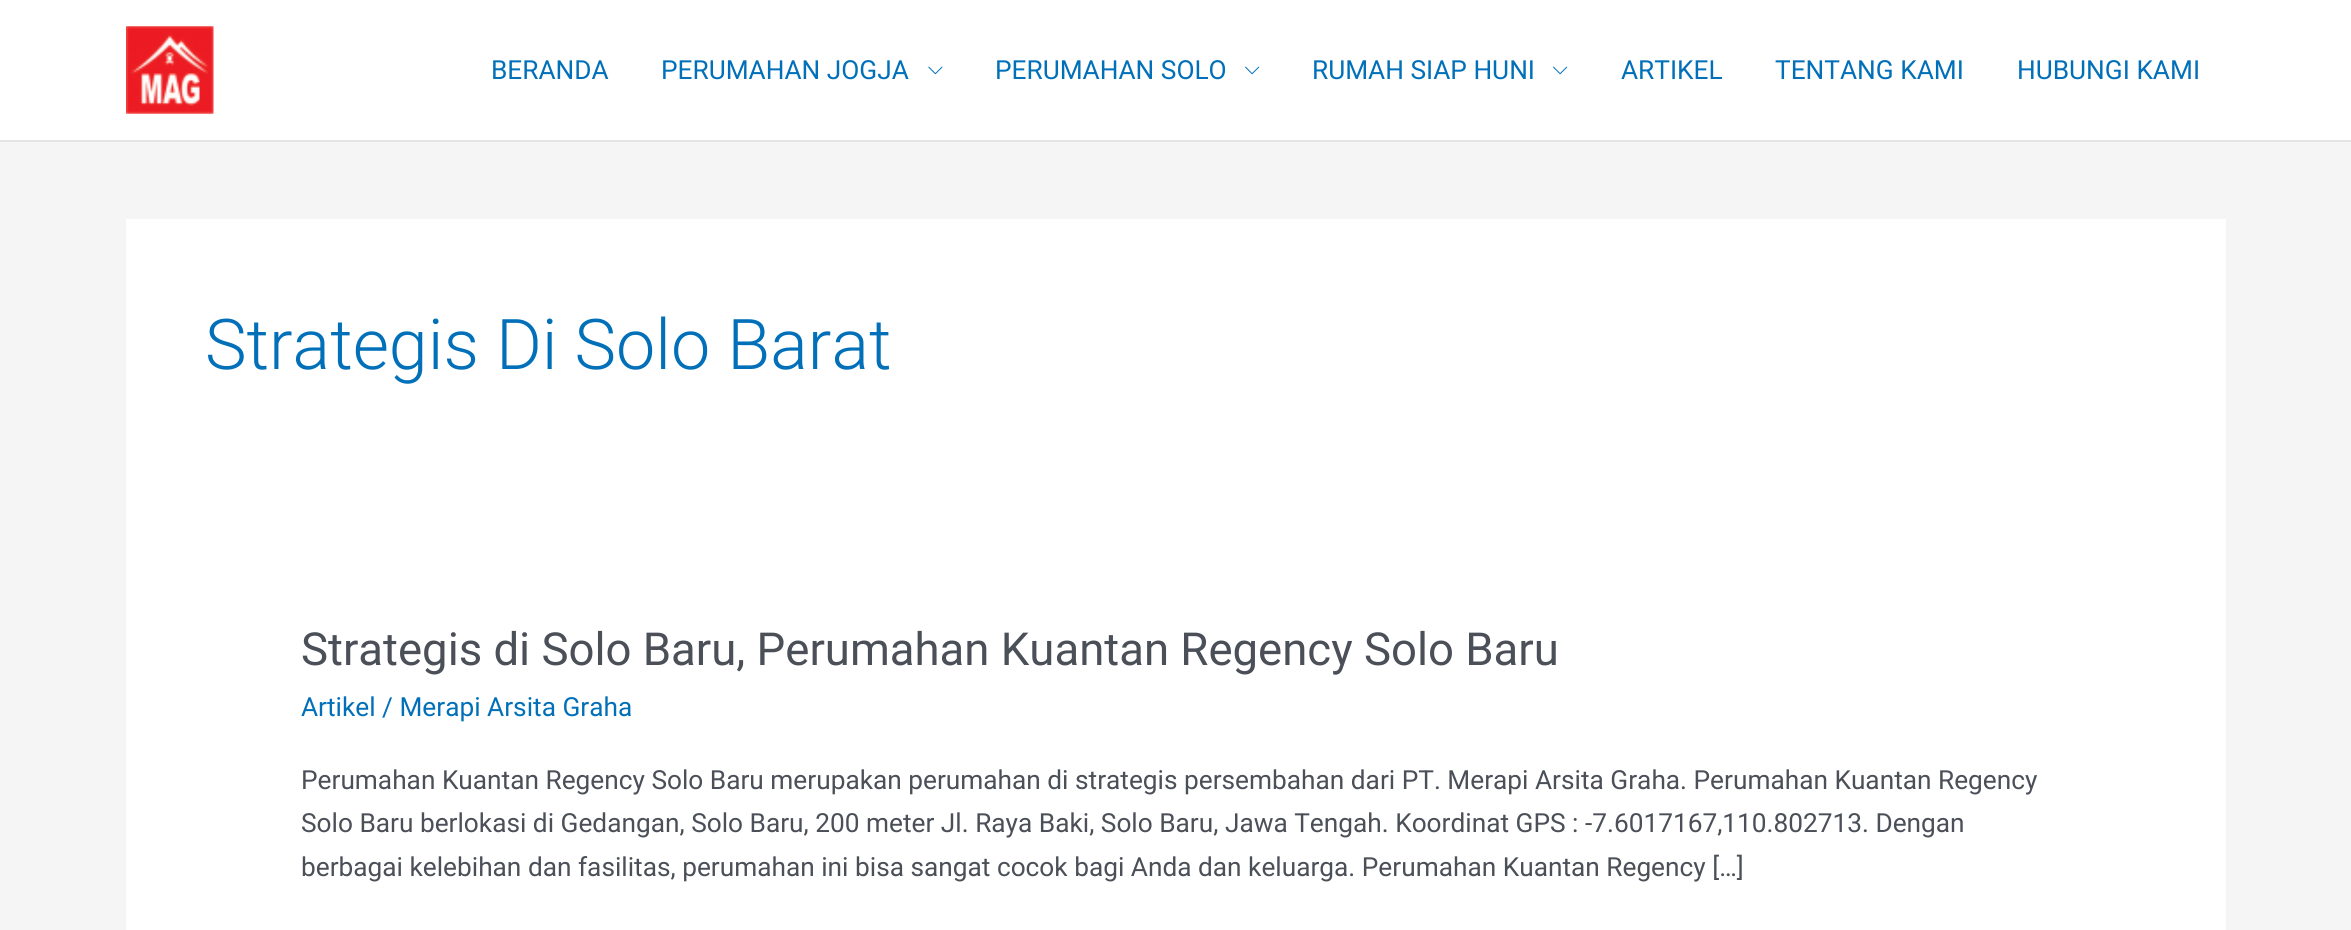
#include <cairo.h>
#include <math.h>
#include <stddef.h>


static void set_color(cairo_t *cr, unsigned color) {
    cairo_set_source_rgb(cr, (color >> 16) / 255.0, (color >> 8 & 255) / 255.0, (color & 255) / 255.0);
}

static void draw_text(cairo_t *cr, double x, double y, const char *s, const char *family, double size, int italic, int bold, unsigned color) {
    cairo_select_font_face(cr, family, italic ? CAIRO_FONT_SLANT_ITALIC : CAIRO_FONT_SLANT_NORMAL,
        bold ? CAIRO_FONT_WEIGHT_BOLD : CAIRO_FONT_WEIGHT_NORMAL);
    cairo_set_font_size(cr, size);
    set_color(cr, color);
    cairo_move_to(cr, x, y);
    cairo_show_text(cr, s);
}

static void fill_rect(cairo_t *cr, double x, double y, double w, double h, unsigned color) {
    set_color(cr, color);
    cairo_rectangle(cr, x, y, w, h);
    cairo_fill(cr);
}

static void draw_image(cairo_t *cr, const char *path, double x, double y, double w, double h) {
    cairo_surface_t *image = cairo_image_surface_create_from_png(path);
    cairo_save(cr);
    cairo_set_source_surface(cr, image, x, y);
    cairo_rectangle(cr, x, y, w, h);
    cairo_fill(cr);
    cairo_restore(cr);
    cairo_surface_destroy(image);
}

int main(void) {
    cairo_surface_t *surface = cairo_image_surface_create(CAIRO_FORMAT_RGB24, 2351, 930);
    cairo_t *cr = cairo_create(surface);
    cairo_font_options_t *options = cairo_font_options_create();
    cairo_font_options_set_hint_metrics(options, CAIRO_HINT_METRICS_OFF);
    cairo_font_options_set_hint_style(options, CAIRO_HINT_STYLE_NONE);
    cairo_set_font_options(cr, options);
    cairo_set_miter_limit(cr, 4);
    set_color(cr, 0xF5F5F5);
    cairo_paint(cr);
    fill_rect(cr, 0, 0, 2351, 140, 0xFFFFFF);
    fill_rect(cr, 0, 140, 2351, 2, 0xE5E5E5);
    draw_image(cr, "assets/img1.png", 126, 26, 88, 88);
    draw_text(cr, 491, 79, "BERANDA", "Roboto", 26.25, 0, 0, 0x0170B9);
    draw_text(cr, 661, 79, "PERUMAHAN JOGJA", "Roboto", 26.25, 0, 0, 0x0170B9);
    draw_image(cr, "assets/img2.png", 928, 66, 15, 9);
    draw_text(cr, 995, 79, "PERUMAHAN SOLO", "Roboto", 26.25, 0, 0, 0x0170B9);
    draw_image(cr, "assets/img3.png", 1245, 66, 15, 9);
    draw_text(cr, 1312, 79, "RUMAH SIAP HUNI", "Roboto", 26.25, 0, 0, 0x0170B9);
    draw_image(cr, "assets/img3.png", 1553, 66, 15, 9);
    draw_text(cr, 1621, 79, "ARTIKEL", "Roboto", 26.25, 0, 0, 0x0170B9);
    draw_text(cr, 1775, 79, "TENTANG KAMI", "Roboto", 26.25, 0, 0, 0x0170B9);
    draw_text(cr, 2017, 79, "HUBUNGI KAMI", "Roboto", 26.25, 0, 0, 0x0170B9);
    fill_rect(cr, 126, 219, 2100, 711, 0xFFFFFF);
    draw_text(cr, 205, 369, "Strategis Di Solo Barat", "Roboto Light", 70, 0, 0, 0x0170B9);
    draw_text(cr, 301, 665, "Strategis di Solo Baru, Perumahan Kuantan Regency Solo Baru", "Roboto", 45.5, 0, 0, 0x4B4F58);
    draw_text(cr, 301, 716, "Artikel / Merapi Arsita Graha", "Roboto", 26.25, 0, 0, 0x0170B9);
    draw_text(cr, 301, 789, "Perumahan Kuantan Regency Solo Baru merupakan perumahan di strategis persembahan dari PT. Merapi Arsita Graha. Perumahan Kuantan Regency", "Roboto", 26.25, 0, 0, 0x4B4F58);
    draw_text(cr, 301, 832, "Solo Baru berlokasi di Gedangan, Solo Baru, 200 meter Jl. Raya Baki, Solo Baru, Jawa Tengah. Koordinat GPS : -7.6017167,110.802713. Dengan", "Roboto", 26.25, 0, 0, 0x4B4F58);
    draw_text(cr, 301, 876, "berbagai kelebihan dan fasilitas, perumahan ini bisa sangat cocok bagi Anda dan keluarga. Perumahan Kuantan Regency […]", "Roboto", 26.25, 0, 0, 0x4B4F58);
    cairo_surface_write_to_png(surface, "output.png");
    cairo_font_options_destroy(options);
    cairo_destroy(cr);
    cairo_surface_destroy(surface);
    return 0;
}
